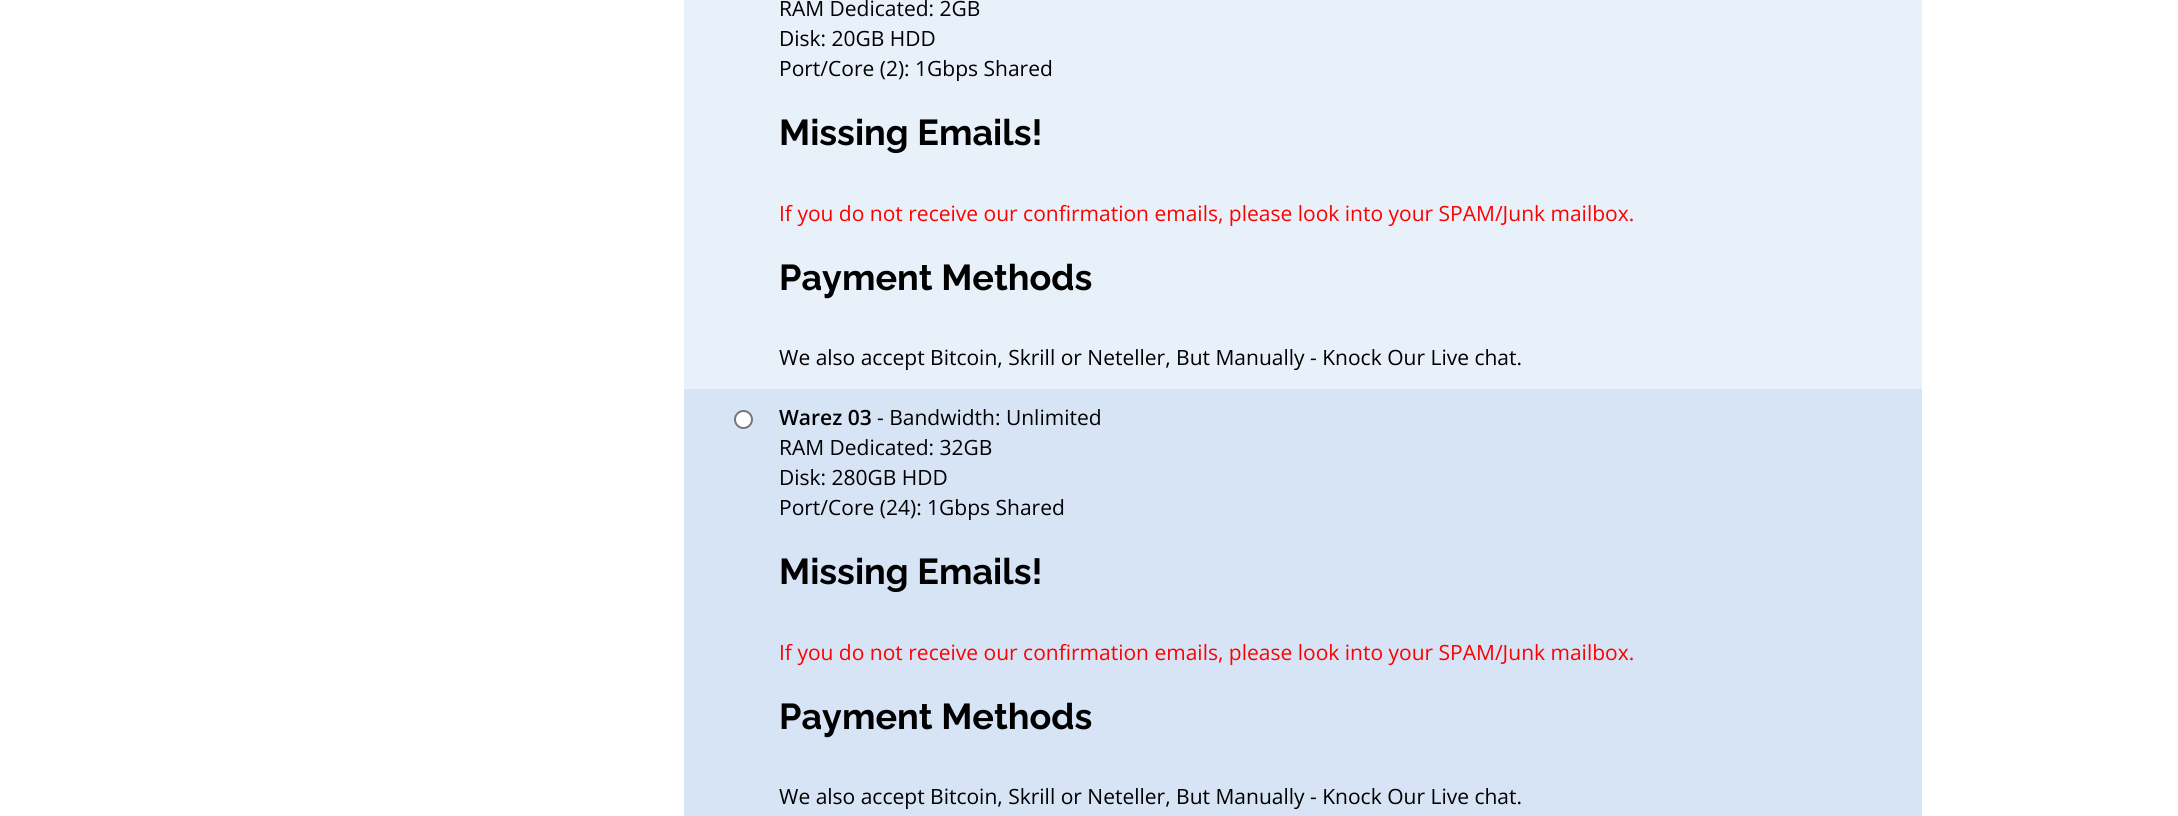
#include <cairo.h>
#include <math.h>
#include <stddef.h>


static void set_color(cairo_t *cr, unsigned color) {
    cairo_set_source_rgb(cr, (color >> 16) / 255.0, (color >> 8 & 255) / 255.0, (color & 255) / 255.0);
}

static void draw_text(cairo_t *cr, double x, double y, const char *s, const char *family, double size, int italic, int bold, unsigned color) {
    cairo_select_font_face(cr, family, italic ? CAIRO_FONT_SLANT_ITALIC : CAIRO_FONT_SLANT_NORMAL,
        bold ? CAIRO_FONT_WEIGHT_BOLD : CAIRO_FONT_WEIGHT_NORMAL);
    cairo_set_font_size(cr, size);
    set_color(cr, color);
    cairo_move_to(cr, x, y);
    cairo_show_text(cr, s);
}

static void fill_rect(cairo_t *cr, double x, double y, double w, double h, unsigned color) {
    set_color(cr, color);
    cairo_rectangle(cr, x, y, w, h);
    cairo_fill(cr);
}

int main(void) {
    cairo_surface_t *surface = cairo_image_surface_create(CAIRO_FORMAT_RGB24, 2178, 816);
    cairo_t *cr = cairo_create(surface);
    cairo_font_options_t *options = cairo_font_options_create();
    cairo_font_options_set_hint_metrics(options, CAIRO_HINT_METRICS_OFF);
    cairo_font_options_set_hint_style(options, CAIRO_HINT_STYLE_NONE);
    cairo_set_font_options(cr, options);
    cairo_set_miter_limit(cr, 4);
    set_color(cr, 0xFFFFFF);
    cairo_paint(cr);
    fill_rect(cr, 684, 0, 1238, 389, 0xE8F0F9);
    draw_text(cr, 779, 16, "RAM Dedicated: 2GB", "Open Sans", 21, 0, 0, 0x000000);
    draw_text(cr, 779, 46, "Disk: 20GB HDD", "Open Sans", 21, 0, 0, 0x000000);
    draw_text(cr, 779, 76, "Port/Core (2): 1Gbps Shared", "Open Sans", 21, 0, 0, 0x000000);
    draw_text(cr, 779, 145, "Missing Emails!", "Raleway", 36, 0, 1, 0x000000);
    draw_text(cr, 779, 221, "If you do not receive our confirmation emails, please look into your SPAM/Junk mailbox.", "Open Sans", 21, 0, 0, 0xFF0000);
    draw_text(cr, 779, 290, "Payment Methods", "Raleway", 36, 0, 1, 0x000000);
    draw_text(cr, 779, 365, "We also accept Bitcoin, Skrill or Neteller, But Manually - Knock Our Live chat.", "Open Sans", 21, 0, 0, 0x000000);
    fill_rect(cr, 684, 389, 1238, 427, 0xD6E4F6);
    set_color(cr, 0xFFFFFF);
    cairo_new_path(cr);
    cairo_arc(cr, 743.5, 419.5, 8.5, 0, 2 * M_PI);
    cairo_fill_preserve(cr);
    set_color(cr, 0x767676);
    cairo_stroke(cr);
    draw_text(cr, 779, 425, "Warez 03", "Open Sans SemiBold", 21, 0, 0, 0x000000);
    draw_text(cr, 877, 425, "- Bandwidth: Unlimited", "Open Sans", 21, 0, 0, 0x000000);
    draw_text(cr, 779, 455, "RAM Dedicated: 32GB", "Open Sans", 21, 0, 0, 0x000000);
    draw_text(cr, 779, 485, "Disk: 280GB HDD", "Open Sans", 21, 0, 0, 0x000000);
    draw_text(cr, 779, 515, "Port/Core (24): 1Gbps Shared", "Open Sans", 21, 0, 0, 0x000000);
    draw_text(cr, 779, 584, "Missing Emails!", "Raleway", 36, 0, 1, 0x000000);
    draw_text(cr, 779, 660, "If you do not receive our confirmation emails, please look into your SPAM/Junk mailbox.", "Open Sans", 21, 0, 0, 0xFF0000);
    draw_text(cr, 779, 729, "Payment Methods", "Raleway", 36, 0, 1, 0x000000);
    draw_text(cr, 779, 804, "We also accept Bitcoin, Skrill or Neteller, But Manually - Knock Our Live chat.", "Open Sans", 21, 0, 0, 0x000000);
    cairo_surface_write_to_png(surface, "output.png");
    cairo_font_options_destroy(options);
    cairo_destroy(cr);
    cairo_surface_destroy(surface);
    return 0;
}
